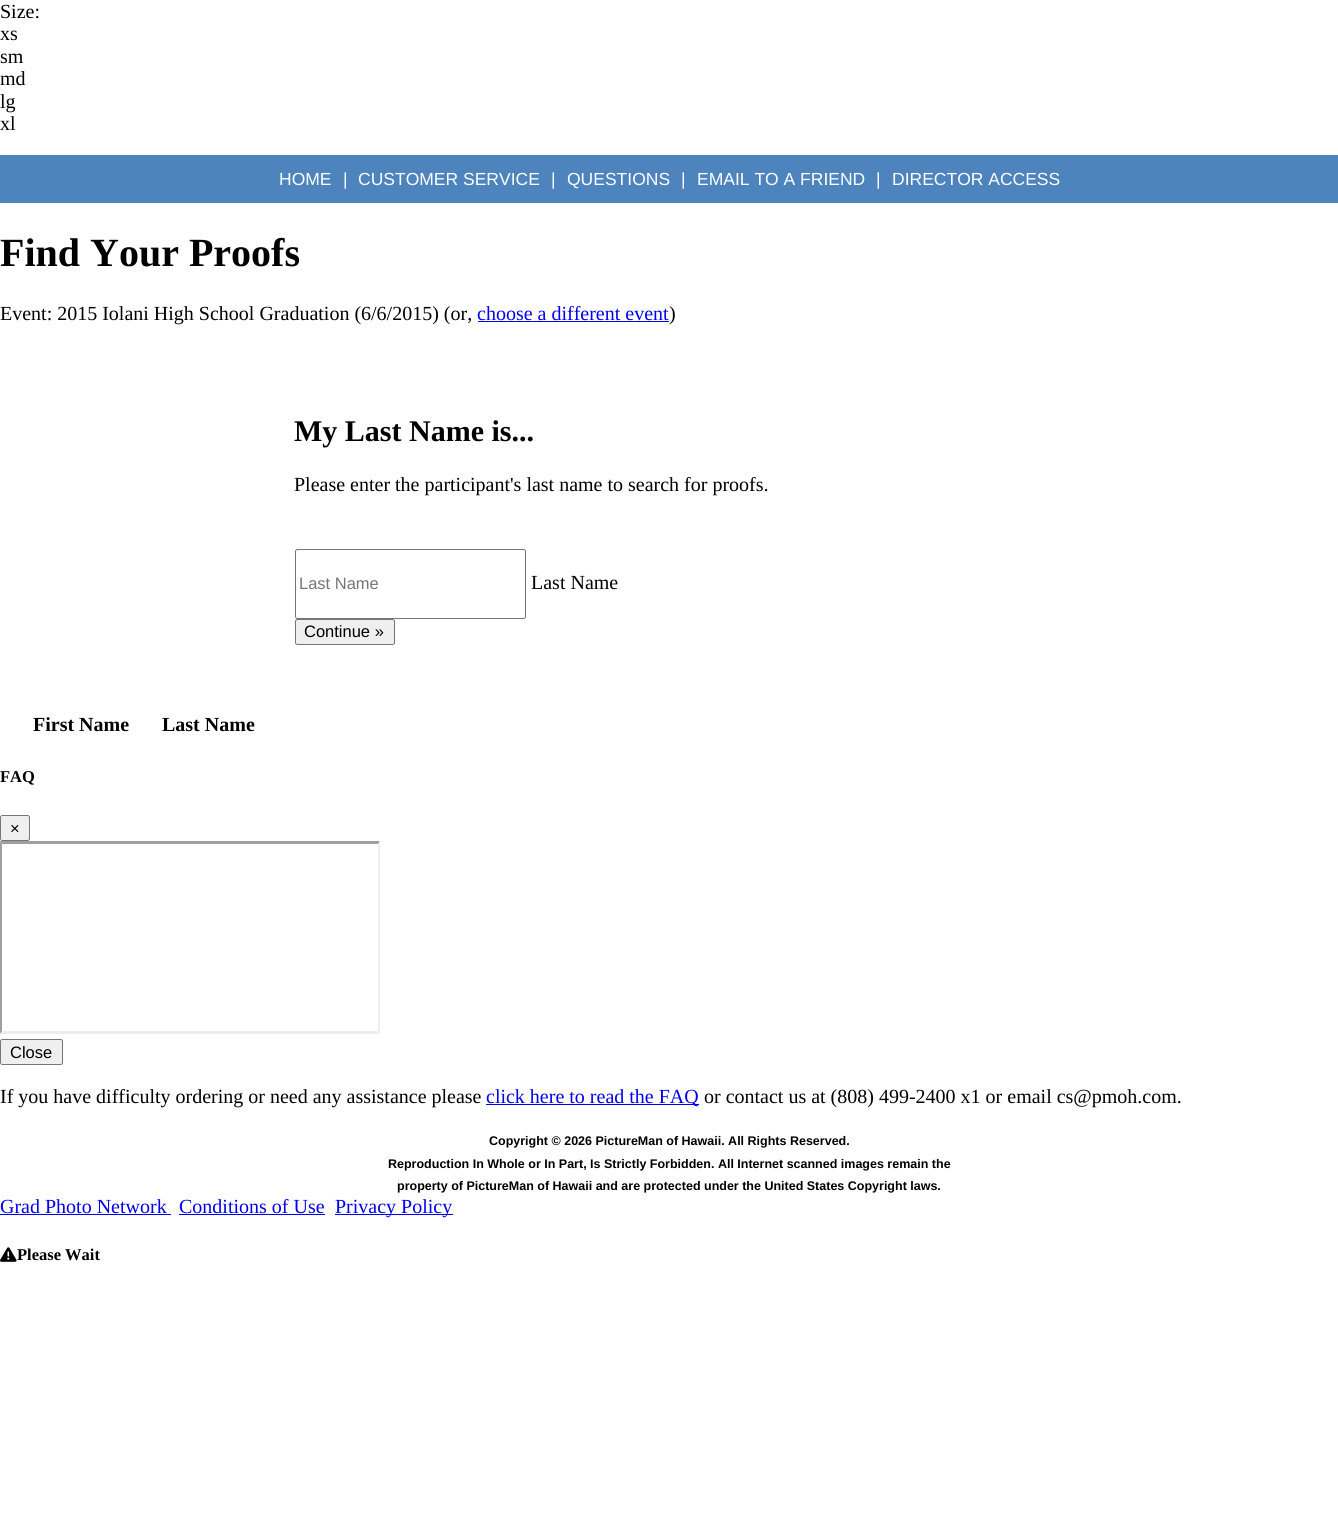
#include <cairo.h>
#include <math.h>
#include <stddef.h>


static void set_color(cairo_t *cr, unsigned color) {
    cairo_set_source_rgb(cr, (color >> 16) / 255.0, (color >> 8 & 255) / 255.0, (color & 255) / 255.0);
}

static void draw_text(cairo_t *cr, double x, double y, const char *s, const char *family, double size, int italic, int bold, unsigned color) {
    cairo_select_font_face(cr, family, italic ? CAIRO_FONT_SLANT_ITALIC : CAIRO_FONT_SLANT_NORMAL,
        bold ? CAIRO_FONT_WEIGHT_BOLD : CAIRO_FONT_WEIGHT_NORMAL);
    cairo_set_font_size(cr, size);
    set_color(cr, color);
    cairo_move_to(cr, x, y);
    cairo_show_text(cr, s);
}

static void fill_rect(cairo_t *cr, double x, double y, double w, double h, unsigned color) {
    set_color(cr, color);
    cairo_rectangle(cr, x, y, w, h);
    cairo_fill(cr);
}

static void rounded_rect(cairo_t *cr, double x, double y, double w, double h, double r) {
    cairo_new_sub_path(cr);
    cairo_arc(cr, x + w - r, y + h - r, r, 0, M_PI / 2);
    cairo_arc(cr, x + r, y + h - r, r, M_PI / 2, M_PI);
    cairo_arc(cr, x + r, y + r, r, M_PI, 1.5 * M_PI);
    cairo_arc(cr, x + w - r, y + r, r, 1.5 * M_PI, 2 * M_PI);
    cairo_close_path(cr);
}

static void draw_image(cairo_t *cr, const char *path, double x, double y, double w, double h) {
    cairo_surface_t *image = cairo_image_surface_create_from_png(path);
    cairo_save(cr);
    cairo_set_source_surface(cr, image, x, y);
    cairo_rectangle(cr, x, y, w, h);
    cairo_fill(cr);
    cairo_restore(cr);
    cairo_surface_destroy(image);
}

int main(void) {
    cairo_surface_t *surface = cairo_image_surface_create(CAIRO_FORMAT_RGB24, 1338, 1528);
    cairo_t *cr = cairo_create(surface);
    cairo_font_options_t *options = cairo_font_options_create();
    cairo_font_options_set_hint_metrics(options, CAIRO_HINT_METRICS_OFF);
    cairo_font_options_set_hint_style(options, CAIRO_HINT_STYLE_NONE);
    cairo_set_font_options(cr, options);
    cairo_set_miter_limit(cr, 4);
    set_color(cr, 0xFFFFFF);
    cairo_paint(cr);
    draw_text(cr, 0, 18, "Size:", "Liberation Serif", 20, 0, 0, 0x000000);
    draw_text(cr, 0, 40, "xs", "Liberation Serif", 20, 0, 0, 0x000000);
    draw_text(cr, 0, 63, "sm", "Liberation Serif", 20, 0, 0, 0x000000);
    draw_text(cr, 0, 85, "md", "Liberation Serif", 20, 0, 0, 0x000000);
    draw_text(cr, 0, 108, "lg", "Liberation Serif", 20, 0, 0, 0x000000);
    draw_text(cr, 0, 130, "xl", "Liberation Serif", 20, 0, 0, 0x000000);
    fill_rect(cr, 0, 155, 1338, 48, 0x4D84BD);
    draw_text(cr, 279, 185, "HOME", "Liberation Sans", 17.5, 0, 0, 0xFFFFFF);
    draw_text(cr, 343, 185, "|", "Liberation Sans", 17.5, 0, 0, 0xFFFFFF);
    draw_text(cr, 358, 185, "CUSTOMER SERVICE", "Liberation Sans", 17.5, 0, 0, 0xFFFFFF);
    draw_text(cr, 551, 185, "|", "Liberation Sans", 17.5, 0, 0, 0xFFFFFF);
    draw_text(cr, 567, 185, "QUESTIONS", "Liberation Sans", 17.5, 0, 0, 0xFFFFFF);
    draw_text(cr, 681, 185, "|", "Liberation Sans", 17.5, 0, 0, 0xFFFFFF);
    draw_text(cr, 697, 185, "EMAIL TO A FRIEND", "Liberation Sans", 17.5, 0, 0, 0xFFFFFF);
    draw_text(cr, 876, 185, "|", "Liberation Sans", 17.5, 0, 0, 0xFFFFFF);
    draw_text(cr, 892, 185, "DIRECTOR ACCESS", "Liberation Sans", 17.5, 0, 0, 0xFFFFFF);
    draw_text(cr, 0, 266, "Find Your Proofs", "Liberation Serif", 40, 0, 1, 0x000000);
    draw_text(cr, 0, 320, "Event: 2015 Iolani High School Graduation (6/6/2015) (or,", "Liberation Serif", 20, 0, 0, 0x000000);
    draw_text(cr, 477, 320, "choose a different event", "Liberation Serif", 20, 0, 0, 0x0000EE);
    draw_text(cr, 669, 320, ")", "Liberation Serif", 20, 0, 0, 0x000000);
    fill_rect(cr, 478, 321, 191, 1, 0x0000EE);
    draw_text(cr, 294, 441, "My Last Name is...", "Liberation Serif", 30, 0, 1, 0x000000);
    draw_text(cr, 294, 491, "Please enter the participant's last name to search for proofs.", "Liberation Serif", 20, 0, 0, 0x000000);
    rounded_rect(cr, 295.5, 549.5, 230, 69, 2);
    set_color(cr, 0x767676);
    cairo_set_line_width(cr, 1);
    cairo_stroke(cr);
    draw_text(cr, 299, 589, "Last Name", "Liberation Sans", 16.5, 0, 0, 0x757575);
    draw_text(cr, 531, 589, "Last Name", "Liberation Serif", 20, 0, 0, 0x000000);
    set_color(cr, 0xEFEFEF);
    rounded_rect(cr, 295.5, 619.5, 99, 25, 2);
    cairo_fill_preserve(cr);
    set_color(cr, 0x767676);
    cairo_stroke(cr);
    draw_text(cr, 304, 637, "Continue »", "Liberation Sans", 16.5, 0, 0, 0x000000);
    draw_text(cr, 33, 731, "First Name", "Liberation Serif", 20, 0, 1, 0x000000);
    draw_text(cr, 162, 731, "Last Name", "Liberation Serif", 20, 0, 1, 0x000000);
    draw_text(cr, 0, 782, "FAQ", "Liberation Serif", 16.5, 0, 1, 0x000000);
    set_color(cr, 0xEFEFEF);
    rounded_rect(cr, 0.5, 815.5, 29, 25, 2);
    cairo_fill_preserve(cr);
    set_color(cr, 0x767676);
    cairo_stroke(cr);
    draw_text(cr, 10, 834, "×", "Liberation Sans", 16.5, 0, 0, 0x000000);
    set_color(cr, 0x9F9F9F);
    cairo_new_path(cr);
    cairo_move_to(cr, 0, 841);
    cairo_line_to(cr, 380, 841);
    cairo_line_to(cr, 378, 844);
    cairo_line_to(cr, 2, 844);
    cairo_close_path(cr);
    cairo_fill(cr);
    set_color(cr, 0xEEEEEE);
    cairo_new_path(cr);
    cairo_move_to(cr, 380, 841);
    cairo_line_to(cr, 380, 1034);
    cairo_line_to(cr, 378, 1031);
    cairo_line_to(cr, 378, 844);
    cairo_close_path(cr);
    cairo_fill(cr);
    cairo_new_path(cr);
    cairo_move_to(cr, 380, 1034);
    cairo_line_to(cr, 0, 1034);
    cairo_line_to(cr, 2, 1031);
    cairo_line_to(cr, 378, 1031);
    cairo_close_path(cr);
    cairo_fill(cr);
    set_color(cr, 0x9F9F9F);
    cairo_new_path(cr);
    cairo_move_to(cr, 0, 1034);
    cairo_line_to(cr, 0, 841);
    cairo_line_to(cr, 2, 844);
    cairo_line_to(cr, 2, 1031);
    cairo_close_path(cr);
    cairo_fill(cr);
    set_color(cr, 0xEFEFEF);
    rounded_rect(cr, 0.5, 1039.5, 62, 25, 2);
    cairo_fill_preserve(cr);
    set_color(cr, 0x767676);
    cairo_stroke(cr);
    draw_text(cr, 10, 1058, "Close", "Liberation Sans", 16.5, 0, 0, 0x000000);
    draw_text(cr, 0, 1103, "If you have difficulty ordering or need any assistance please", "Liberation Serif", 20, 0, 0, 0x000000);
    fill_rect(cr, 486, 1104, 213, 1, 0x0000EE);
    draw_text(cr, 486, 1103, "click here to read the FAQ", "Liberation Serif", 20, 0, 0, 0x0000EE);
    draw_text(cr, 704, 1103, "or contact us at (808) 499-2400 x1 or email cs@pmoh.com.", "Liberation Serif", 20, 0, 0, 0x000000);
    draw_text(cr, 489, 1145, "Copyright © 2026 PictureMan of Hawaii. All Rights Reserved.", "Liberation Sans", 12.5, 0, 1, 0x000000);
    draw_text(cr, 388, 1168, "Reproduction In Whole or In Part, Is Strictly Forbidden. All Internet scanned images remain the", "Liberation Sans", 12.5, 0, 1, 0x000000);
    draw_text(cr, 397, 1190, "property of PictureMan of Hawaii and are protected under the United States Copyright laws.", "Liberation Sans", 12.5, 0, 1, 0x000000);
    draw_text(cr, 0, 1213, "Grad Photo Network", "Liberation Serif", 20, 0, 0, 0x0000EE);
    fill_rect(cr, 0, 1214, 171, 1, 0x0000EE);
    draw_text(cr, 179, 1213, "Conditions of Use", "Liberation Serif", 20, 0, 0, 0x0000EE);
    fill_rect(cr, 179, 1214, 146, 1, 0x0000EE);
    fill_rect(cr, 335, 1214, 118, 1, 0x0000EE);
    draw_text(cr, 335, 1213, "Privacy Policy", "Liberation Serif", 20, 0, 0, 0x0000EE);
    draw_text(cr, 17, 1260, "Please Wait", "Liberation Serif", 16.5, 0, 1, 0x000000);
    draw_image(cr, "assets/img1.png", 0, 1247, 17, 15);
    cairo_surface_write_to_png(surface, "output.png");
    cairo_font_options_destroy(options);
    cairo_destroy(cr);
    cairo_surface_destroy(surface);
    return 0;
}
